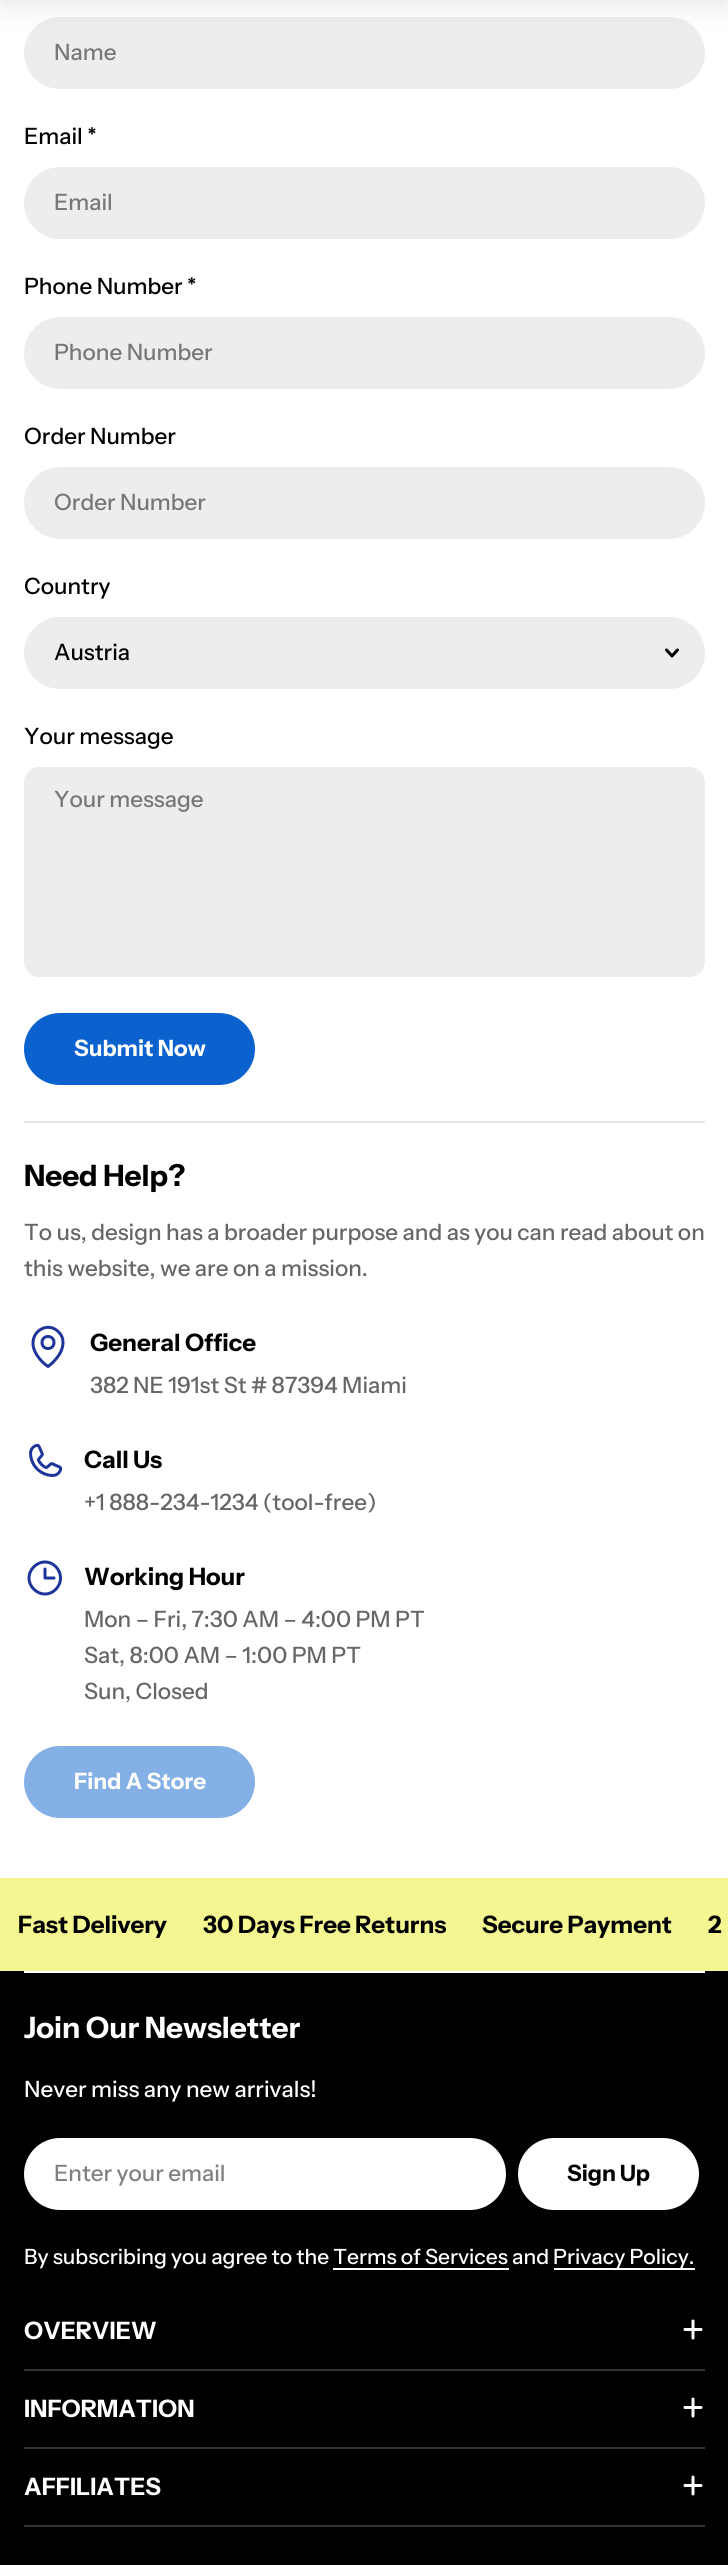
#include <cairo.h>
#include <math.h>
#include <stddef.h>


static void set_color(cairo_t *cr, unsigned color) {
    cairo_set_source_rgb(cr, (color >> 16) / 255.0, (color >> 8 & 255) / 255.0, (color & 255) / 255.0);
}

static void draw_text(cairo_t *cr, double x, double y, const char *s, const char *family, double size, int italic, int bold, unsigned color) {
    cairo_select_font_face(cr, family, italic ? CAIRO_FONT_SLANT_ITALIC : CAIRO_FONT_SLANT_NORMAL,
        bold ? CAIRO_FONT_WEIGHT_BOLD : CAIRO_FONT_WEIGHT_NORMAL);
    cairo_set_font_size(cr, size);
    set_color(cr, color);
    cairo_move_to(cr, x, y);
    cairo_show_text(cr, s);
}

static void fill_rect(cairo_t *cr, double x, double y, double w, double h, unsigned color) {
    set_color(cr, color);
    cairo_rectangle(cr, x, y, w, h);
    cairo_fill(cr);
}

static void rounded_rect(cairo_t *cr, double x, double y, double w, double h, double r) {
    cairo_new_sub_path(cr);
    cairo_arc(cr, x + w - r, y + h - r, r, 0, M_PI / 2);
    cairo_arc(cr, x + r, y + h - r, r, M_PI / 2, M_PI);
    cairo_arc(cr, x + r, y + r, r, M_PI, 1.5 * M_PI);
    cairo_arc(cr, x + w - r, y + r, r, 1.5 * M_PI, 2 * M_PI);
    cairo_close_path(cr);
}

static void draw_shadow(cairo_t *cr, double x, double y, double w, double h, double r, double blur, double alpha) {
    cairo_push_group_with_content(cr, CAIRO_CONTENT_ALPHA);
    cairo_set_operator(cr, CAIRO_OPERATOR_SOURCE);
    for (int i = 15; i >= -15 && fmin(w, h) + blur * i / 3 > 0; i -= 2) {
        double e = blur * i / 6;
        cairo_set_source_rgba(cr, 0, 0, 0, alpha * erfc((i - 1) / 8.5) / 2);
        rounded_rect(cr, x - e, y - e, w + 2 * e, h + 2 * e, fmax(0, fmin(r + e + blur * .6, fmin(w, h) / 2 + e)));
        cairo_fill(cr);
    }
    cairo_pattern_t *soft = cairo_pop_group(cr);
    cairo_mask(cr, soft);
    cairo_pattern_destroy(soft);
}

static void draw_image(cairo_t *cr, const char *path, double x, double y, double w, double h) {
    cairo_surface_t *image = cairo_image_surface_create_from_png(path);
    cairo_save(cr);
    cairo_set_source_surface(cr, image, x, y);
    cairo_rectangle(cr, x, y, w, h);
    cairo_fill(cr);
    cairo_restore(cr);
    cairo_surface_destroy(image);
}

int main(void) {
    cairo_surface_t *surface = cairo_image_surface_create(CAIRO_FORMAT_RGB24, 728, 2565);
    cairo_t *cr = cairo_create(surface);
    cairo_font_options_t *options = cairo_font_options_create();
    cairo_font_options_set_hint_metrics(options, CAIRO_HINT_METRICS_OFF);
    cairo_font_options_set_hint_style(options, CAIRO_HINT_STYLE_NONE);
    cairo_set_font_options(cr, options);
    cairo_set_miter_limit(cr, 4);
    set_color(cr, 0xFFFFFF);
    cairo_paint(cr);
    set_color(cr, 0xEDEDED);
    rounded_rect(cr, 24, 17, 681, 72, 36);
    cairo_fill(cr);
    set_color(cr, 0x000000);
    draw_shadow(cr, 0, -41, 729, 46, 0, 13.5, 0.1);
    draw_text(cr, 54, 60, "Name", "Instrument Sans Medium", 22.5, 0, 0, 0x777777);
    draw_text(cr, 24, 144, "Email *", "Instrument Sans Medium", 22.5, 0, 0, 0x000000);
    set_color(cr, 0xEDEDED);
    rounded_rect(cr, 24, 167, 681, 72, 36);
    cairo_fill(cr);
    draw_text(cr, 54, 210, "Email", "Instrument Sans Medium", 22.5, 0, 0, 0x777777);
    draw_text(cr, 24, 294, "Phone Number *", "Instrument Sans Medium", 22.5, 0, 0, 0x000000);
    set_color(cr, 0xEDEDED);
    rounded_rect(cr, 24, 317, 681, 72, 36);
    cairo_fill(cr);
    draw_text(cr, 54, 360, "Phone Number", "Instrument Sans Medium", 22.5, 0, 0, 0x777777);
    draw_text(cr, 24, 444, "Order Number", "Instrument Sans Medium", 22.5, 0, 0, 0x000000);
    set_color(cr, 0xEDEDED);
    rounded_rect(cr, 24, 467, 681, 72, 36);
    cairo_fill(cr);
    draw_text(cr, 54, 510, "Order Number", "Instrument Sans Medium", 22.5, 0, 0, 0x777777);
    draw_text(cr, 24, 594, "Country", "Instrument Sans Medium", 22.5, 0, 0, 0x000000);
    set_color(cr, 0xEDEDED);
    rounded_rect(cr, 24, 617, 681, 72, 36);
    cairo_fill(cr);
    draw_text(cr, 54, 660, "Austria", "Instrument Sans Medium", 22.5, 0, 0, 0x000000);
    cairo_new_path(cr);
    cairo_move_to(cr, 677.5, 650);
    cairo_line_to(cr, 672, 656);
    cairo_line_to(cr, 666.5, 650);
    cairo_set_line_width(cr, 3);
    cairo_set_line_cap(cr, CAIRO_LINE_CAP_ROUND);
    cairo_set_line_join(cr, CAIRO_LINE_JOIN_ROUND);
    cairo_stroke(cr);
    draw_text(cr, 24, 744, "Your message", "Instrument Sans Medium", 22.5, 0, 0, 0x000000);
    set_color(cr, 0xEDEDED);
    rounded_rect(cr, 24, 767, 681, 210, 15);
    cairo_fill(cr);
    draw_text(cr, 54, 807, "Your message", "Instrument Sans Medium", 22.5, 0, 0, 0x777777);
    set_color(cr, 0x0B61CD);
    rounded_rect(cr, 25, 1014, 229, 70, 35);
    cairo_fill_preserve(cr);
    cairo_set_line_width(cr, 2);
    cairo_set_line_cap(cr, CAIRO_LINE_CAP_BUTT);
    cairo_set_line_join(cr, CAIRO_LINE_JOIN_MITER);
    cairo_stroke(cr);
    draw_text(cr, 74, 1056, "Submit Now", "Instrument Sans", 22.5, 0, 1, 0xFFFFFF);
    fill_rect(cr, 24, 1121, 681, 2, 0xE6E6E6);
    draw_text(cr, 24, 1186, "Need Help?", "Instrument Sans", 29.5, 0, 1, 0x000000);
    draw_text(cr, 24, 1240, "To us, design has a broader purpose and as you can read about on", "Instrument Sans Medium", 22.5, 0, 0, 0x666666);
    draw_text(cr, 24, 1276, "this website, we are on a mission.", "Instrument Sans Medium", 22.5, 0, 0, 0x666666);
    cairo_new_path(cr);
    cairo_move_to(cr, 48, 1348.5);
    cairo_curve_to(cr, 56, 1348.5, 56, 1336.5, 48, 1336.5);
    cairo_curve_to(cr, 40, 1336.5, 40, 1348.5, 48, 1348.5);
    cairo_close_path(cr);
    cairo_move_to(cr, 63, 1342.5);
    cairo_curve_to(cr, 63, 1356, 48, 1366.5, 48, 1366.5);
    cairo_curve_to(cr, 41.5, 1362, 35.5, 1355, 33.5, 1347.5);
    cairo_curve_to(cr, 29.5, 1331, 49, 1320, 59.5, 1333);
    cairo_curve_to(cr, 62, 1335.5, 63, 1339, 63, 1342.5);
    cairo_close_path(cr);
    set_color(cr, 0x1D349A);
    cairo_set_line_width(cr, 3);
    cairo_set_line_cap(cr, CAIRO_LINE_CAP_ROUND);
    cairo_set_line_join(cr, CAIRO_LINE_JOIN_ROUND);
    cairo_stroke(cr);
    draw_text(cr, 90, 1351, "General Office", "Instrument Sans", 24, 0, 1, 0x000000);
    draw_text(cr, 90, 1393, "382 NE 191st St # 87394 Miami", "Instrument Sans Medium", 22.5, 0, 0, 0x666666);
    draw_image(cr, "assets/img1.png", 29, 1443, 34, 34);
    draw_text(cr, 84, 1468, "Call Us", "Instrument Sans", 24, 0, 1, 0x000000);
    draw_text(cr, 84, 1510, "+1 888-234-1234 (tool-free)", "Instrument Sans Medium", 22.5, 0, 0, 0x666666);
    cairo_new_path(cr);
    cairo_move_to(cr, 45, 1594);
    cairo_curve_to(cr, 53.5, 1594, 60.5, 1586.5, 60.5, 1578);
    cairo_curve_to(cr, 60.5, 1569.5, 53.5, 1562, 45, 1562);
    cairo_curve_to(cr, 36.5, 1562, 29, 1569.5, 29, 1578);
    cairo_curve_to(cr, 29, 1586.5, 36.5, 1594, 45, 1594);
    cairo_close_path(cr);
    cairo_move_to(cr, 45, 1569);
    cairo_line_to(cr, 45, 1578);
    cairo_line_to(cr, 54, 1578);
    set_color(cr, 0x1D349A);
    cairo_stroke(cr);
    draw_text(cr, 84, 1585, "Working Hour", "Instrument Sans", 24, 0, 1, 0x000000);
    draw_text(cr, 84, 1627, "Mon – Fri, 7:30 AM – 4:00 PM PT", "Instrument Sans Medium", 22.5, 0, 0, 0x666666);
    draw_text(cr, 84, 1663, "Sat, 8:00 AM – 1:00 PM PT", "Instrument Sans Medium", 22.5, 0, 0, 0x666666);
    draw_text(cr, 84, 1699, "Sun, Closed", "Instrument Sans Medium", 22.5, 0, 0, 0x666666);
    set_color(cr, 0x85B0E6);
    rounded_rect(cr, 25, 1747, 229, 70, 35);
    cairo_fill_preserve(cr);
    cairo_set_line_width(cr, 2);
    cairo_set_line_cap(cr, CAIRO_LINE_CAP_BUTT);
    cairo_set_line_join(cr, CAIRO_LINE_JOIN_MITER);
    cairo_stroke(cr);
    draw_text(cr, 74, 1789, "Find A Store", "Instrument Sans", 22.5, 0, 1, 0xFFFFFF);
    fill_rect(cr, 0, 1878, 728, 93, 0xF4F691);
    draw_text(cr, 18, 1933, "Fast Delivery", "Instrument Sans", 24, 0, 1, 0x000000);
    draw_text(cr, 203, 1933, "30 Days Free Returns", "Instrument Sans", 24, 0, 1, 0x000000);
    draw_text(cr, 482, 1933, "Secure Payment", "Instrument Sans", 24, 0, 1, 0x000000);
    draw_text(cr, 708, 1933, "2", "Instrument Sans", 24, 0, 1, 0x000000);
    fill_rect(cr, 0, 1971, 728, 594, 0x000000);
    fill_rect(cr, 24, 1971, 681, 2, 0xFFFFFF);
    draw_text(cr, 24, 2038, "Join Our Newsletter", "Instrument Sans", 29.5, 0, 1, 0xFFFFFF);
    draw_text(cr, 24, 2097, "Never miss any new arrivals!", "Instrument Sans Medium", 22.5, 0, 0, 0xFFFFFF);
    rounded_rect(cr, 24, 2138, 482, 72, 36);
    cairo_fill(cr);
    draw_text(cr, 54, 2181, "Enter your email", "Instrument Sans Medium", 22.5, 0, 0, 0x808080);
    set_color(cr, 0xFFFFFF);
    rounded_rect(cr, 519, 2139, 179, 70, 35);
    cairo_fill_preserve(cr);
    cairo_stroke(cr);
    draw_text(cr, 567, 2181, "Sign Up", "Instrument Sans", 22.5, 0, 1, 0x000000);
    draw_text(cr, 24, 2264, "By subscribing you agree to the Terms of Services and", "Instrument Sans Medium", 21, 0, 0, 0xFFFFFF);
    fill_rect(cr, 554, 2268, 141, 2, 0xFFFFFF);
    draw_text(cr, 553, 2264, "Privacy Policy.", "Instrument Sans Medium", 21, 0, 0, 0xFFFFFF);
    fill_rect(cr, 333, 2268, 176, 2, 0xFFFFFF);
    fill_rect(cr, 24, 2369, 681, 2, 0x333333);
    draw_text(cr, 24, 2339, "OVERVIEW", "Instrument Sans", 24, 0, 1, 0xFFFFFF);
    cairo_new_path(cr);
    cairo_move_to(cr, 685, 2329.5);
    cairo_line_to(cr, 701, 2329.5);
    cairo_move_to(cr, 693, 2321);
    cairo_line_to(cr, 693, 2338);
    cairo_set_line_width(cr, 3);
    cairo_set_line_cap(cr, CAIRO_LINE_CAP_ROUND);
    cairo_set_line_join(cr, CAIRO_LINE_JOIN_ROUND);
    cairo_stroke(cr);
    fill_rect(cr, 24, 2447, 681, 2, 0x333333);
    draw_text(cr, 24, 2417, "INFORMATION", "Instrument Sans", 24, 0, 1, 0xFFFFFF);
    cairo_new_path(cr);
    cairo_move_to(cr, 685, 2407.5);
    cairo_line_to(cr, 701, 2407.5);
    cairo_move_to(cr, 693, 2399);
    cairo_line_to(cr, 693, 2416);
    cairo_stroke(cr);
    fill_rect(cr, 24, 2525, 681, 2, 0x333333);
    draw_text(cr, 24, 2495, "AFFILIATES", "Instrument Sans", 24, 0, 1, 0xFFFFFF);
    cairo_new_path(cr);
    cairo_move_to(cr, 685, 2485.5);
    cairo_line_to(cr, 701, 2485.5);
    cairo_move_to(cr, 693, 2477);
    cairo_line_to(cr, 693, 2494);
    cairo_stroke(cr);
    cairo_surface_write_to_png(surface, "output.png");
    cairo_font_options_destroy(options);
    cairo_destroy(cr);
    cairo_surface_destroy(surface);
    return 0;
}
